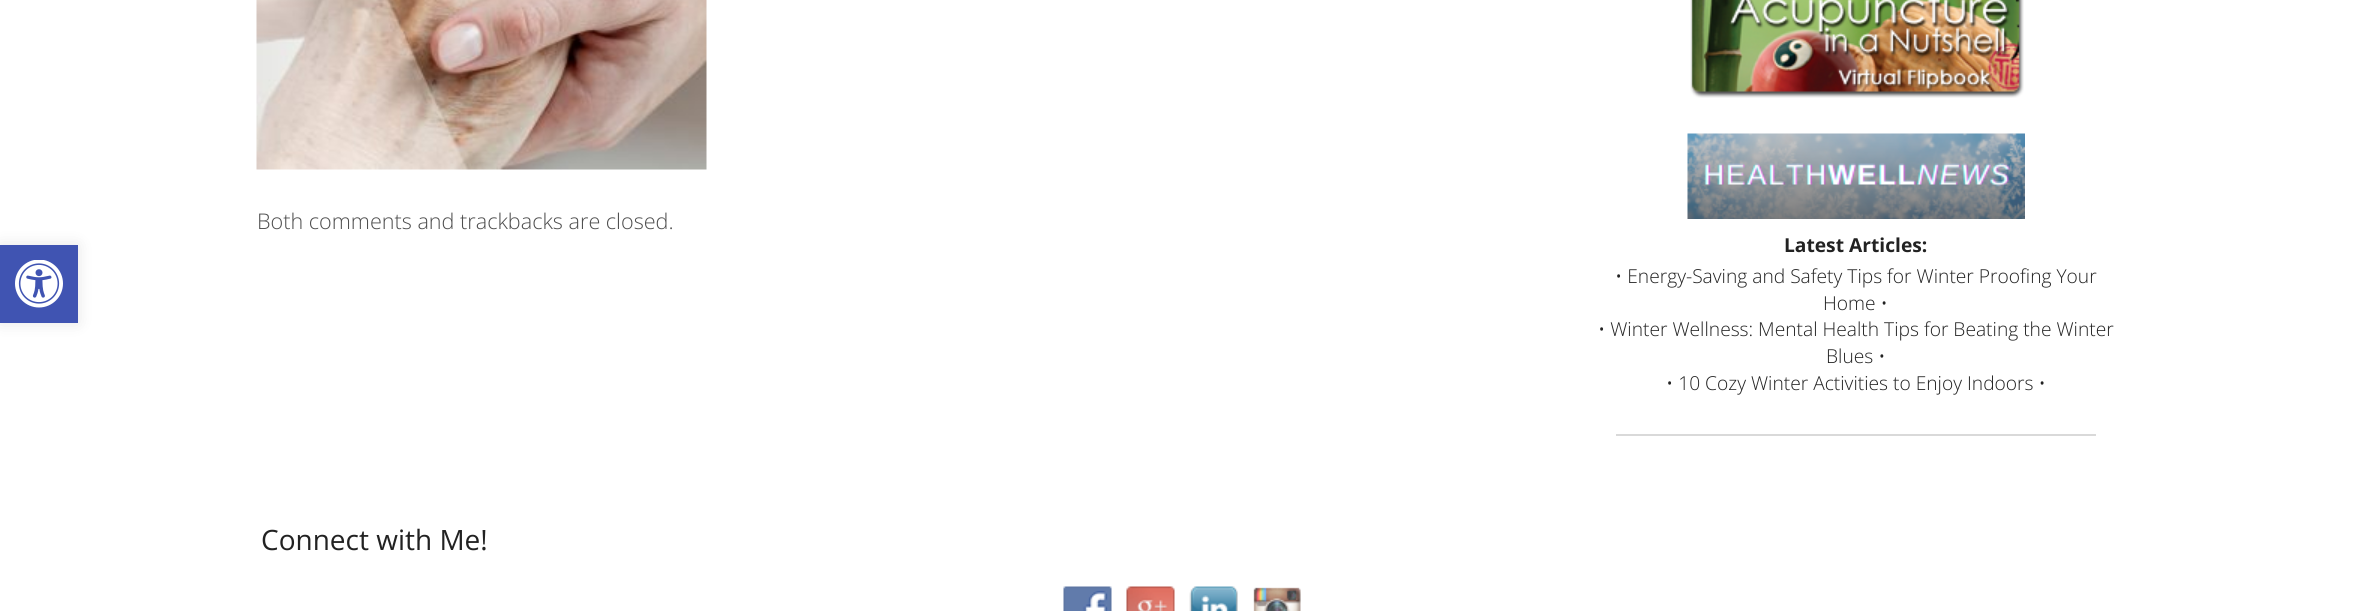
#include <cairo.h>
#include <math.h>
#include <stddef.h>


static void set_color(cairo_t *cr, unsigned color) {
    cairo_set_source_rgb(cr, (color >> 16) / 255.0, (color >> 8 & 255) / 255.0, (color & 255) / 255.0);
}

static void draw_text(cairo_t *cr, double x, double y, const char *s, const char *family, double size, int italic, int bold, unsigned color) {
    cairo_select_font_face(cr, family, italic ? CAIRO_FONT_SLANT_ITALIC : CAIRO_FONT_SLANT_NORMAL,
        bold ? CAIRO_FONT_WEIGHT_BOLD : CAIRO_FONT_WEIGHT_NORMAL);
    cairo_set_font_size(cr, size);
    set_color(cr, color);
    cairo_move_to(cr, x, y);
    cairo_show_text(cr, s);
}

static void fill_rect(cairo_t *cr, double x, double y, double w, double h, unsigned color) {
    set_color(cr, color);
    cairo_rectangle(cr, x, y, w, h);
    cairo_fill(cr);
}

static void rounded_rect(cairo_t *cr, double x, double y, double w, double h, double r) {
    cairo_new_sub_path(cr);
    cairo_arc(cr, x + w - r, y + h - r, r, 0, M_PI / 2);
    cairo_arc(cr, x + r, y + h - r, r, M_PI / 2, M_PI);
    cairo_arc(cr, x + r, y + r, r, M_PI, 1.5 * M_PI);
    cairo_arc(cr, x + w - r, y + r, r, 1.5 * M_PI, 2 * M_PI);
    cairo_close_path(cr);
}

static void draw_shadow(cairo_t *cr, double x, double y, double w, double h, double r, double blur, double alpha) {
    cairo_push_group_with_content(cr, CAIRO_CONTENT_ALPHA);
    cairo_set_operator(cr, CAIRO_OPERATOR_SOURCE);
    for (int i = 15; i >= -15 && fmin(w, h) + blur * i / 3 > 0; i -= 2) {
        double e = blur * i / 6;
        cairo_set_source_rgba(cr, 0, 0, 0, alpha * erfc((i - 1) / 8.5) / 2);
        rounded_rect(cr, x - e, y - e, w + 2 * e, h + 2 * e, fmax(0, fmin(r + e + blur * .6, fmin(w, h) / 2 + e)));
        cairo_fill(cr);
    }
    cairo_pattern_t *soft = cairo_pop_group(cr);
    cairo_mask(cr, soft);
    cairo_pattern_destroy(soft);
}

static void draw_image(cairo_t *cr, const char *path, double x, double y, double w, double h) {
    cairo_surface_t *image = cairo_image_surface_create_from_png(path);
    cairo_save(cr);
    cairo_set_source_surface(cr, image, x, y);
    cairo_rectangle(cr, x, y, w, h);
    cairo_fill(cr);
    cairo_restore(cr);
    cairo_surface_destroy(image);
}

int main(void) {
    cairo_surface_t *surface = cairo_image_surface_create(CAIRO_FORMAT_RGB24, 2379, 611);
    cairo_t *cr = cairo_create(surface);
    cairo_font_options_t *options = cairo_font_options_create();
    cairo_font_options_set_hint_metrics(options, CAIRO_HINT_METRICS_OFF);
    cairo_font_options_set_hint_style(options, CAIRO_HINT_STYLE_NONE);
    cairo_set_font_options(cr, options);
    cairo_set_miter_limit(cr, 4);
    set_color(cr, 0xFFFFFF);
    cairo_paint(cr);
    set_color(cr, 0x000000);
    draw_shadow(cr, 0, 245, 78, 78, 0, 7.5, 0.1);
    fill_rect(cr, 0, 245, 78, 78, 0x4054B2);
    draw_image(cr, "assets/img1.png", 15, 260, 48, 48);
    draw_image(cr, "assets/img2.png", 256, 0, 451, 170);
    draw_text(cr, 257, 229, "Both comments and trackbacks are closed.", "Open Sans Light", 21.6, 0, 0, 0x4E4E4E);
    draw_image(cr, "assets/img3.png", 1690, 0, 334, 98);
    draw_image(cr, "assets/img4.png", 1687, 133, 338, 86);
    draw_text(cr, 1784, 252, "Latest Articles:", "Open Sans", 19.2, 0, 1, 0x222222);
    draw_text(cr, 1615, 283, "• Energy-Saving and Safety Tips for Winter Proofing Your", "Open Sans Light", 19.2, 0, 0, 0x222222);
    draw_text(cr, 1823, 310, "Home •", "Open Sans Light", 19.2, 0, 0, 0x222222);
    draw_text(cr, 1598, 336, "• Winter Wellness: Mental Health Tips for Beating the Winter", "Open Sans Light", 19.2, 0, 0, 0x222222);
    draw_text(cr, 1826, 363, "Blues •", "Open Sans Light", 19.2, 0, 0, 0x222222);
    draw_text(cr, 1666, 390, "• 10 Cozy Winter Activities to Enjoy Indoors •", "Open Sans Light", 19.2, 0, 0, 0x222222);
    fill_rect(cr, 1616, 434, 480, 2, 0xD9D9D9);
    draw_text(cr, 261, 550, "Connect with Me!", "Open Sans", 28, 0, 0, 0x222222);
    draw_image(cr, "assets/img5.png", 1063, 586, 49, 25);
    draw_image(cr, "assets/img6.png", 1126, 586, 49, 25);
    draw_image(cr, "assets/img7.png", 1189, 586, 49, 25);
    draw_image(cr, "assets/img8.png", 1253, 587, 48, 24);
    cairo_surface_write_to_png(surface, "output.png");
    cairo_font_options_destroy(options);
    cairo_destroy(cr);
    cairo_surface_destroy(surface);
    return 0;
}
